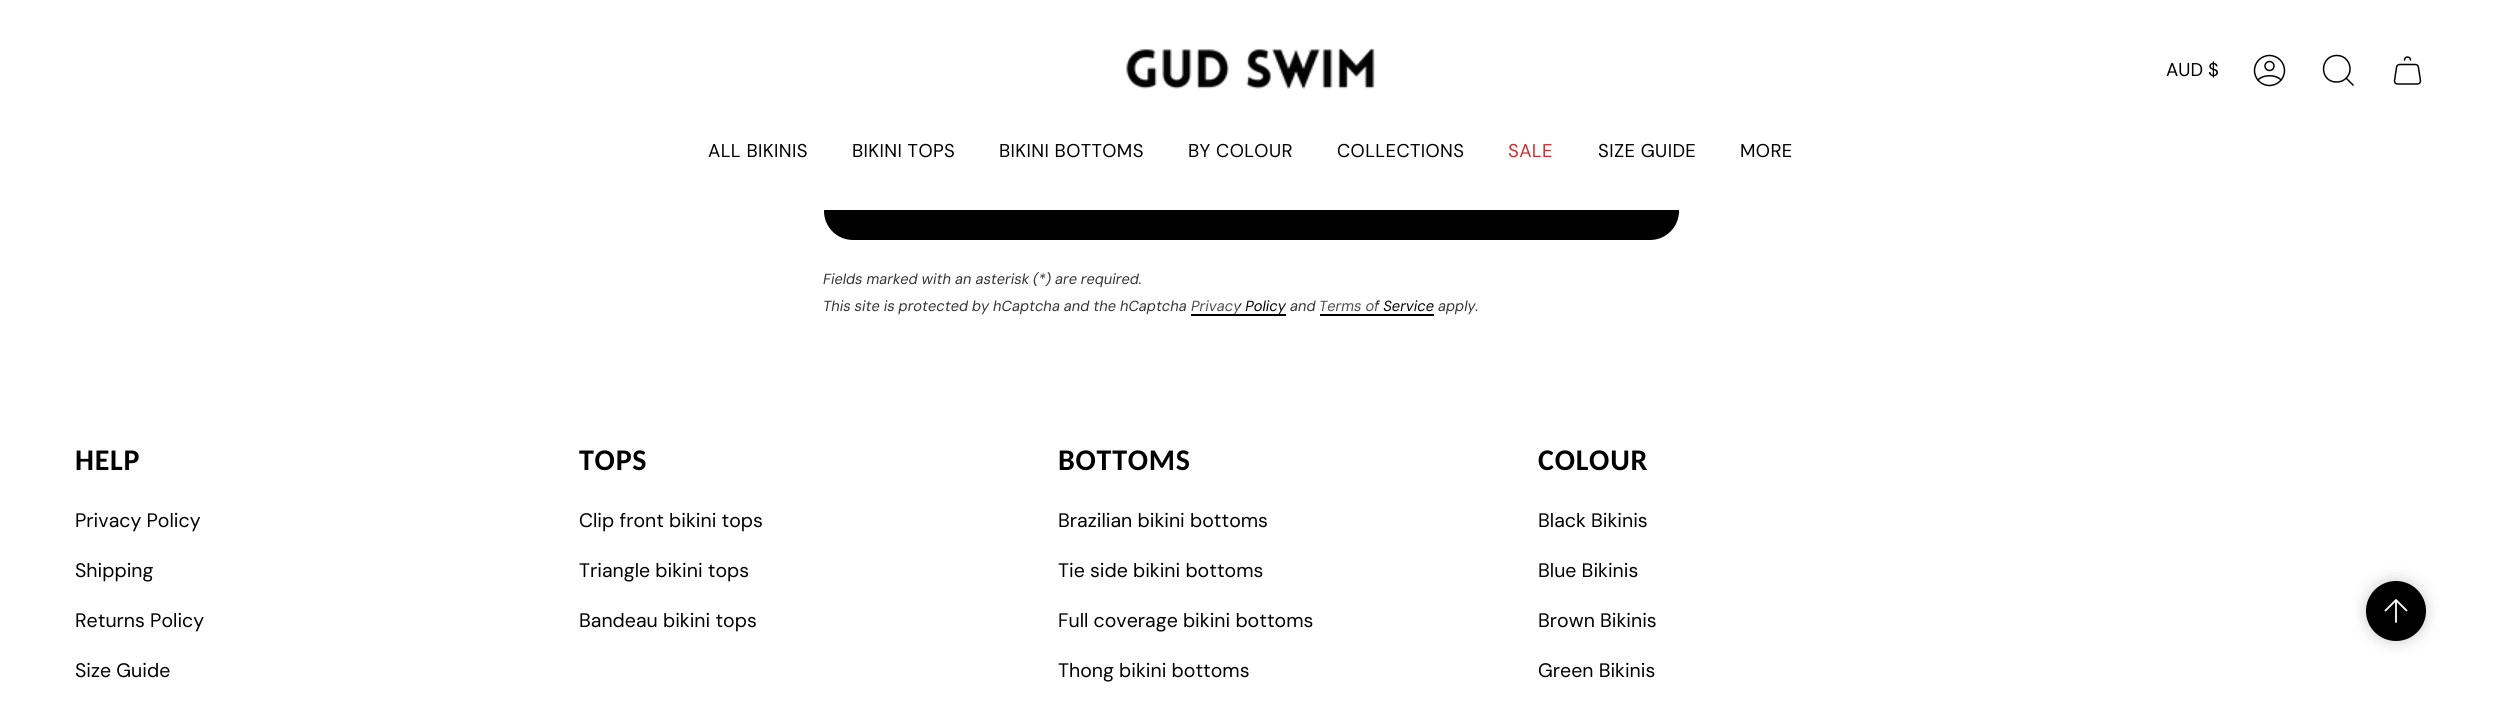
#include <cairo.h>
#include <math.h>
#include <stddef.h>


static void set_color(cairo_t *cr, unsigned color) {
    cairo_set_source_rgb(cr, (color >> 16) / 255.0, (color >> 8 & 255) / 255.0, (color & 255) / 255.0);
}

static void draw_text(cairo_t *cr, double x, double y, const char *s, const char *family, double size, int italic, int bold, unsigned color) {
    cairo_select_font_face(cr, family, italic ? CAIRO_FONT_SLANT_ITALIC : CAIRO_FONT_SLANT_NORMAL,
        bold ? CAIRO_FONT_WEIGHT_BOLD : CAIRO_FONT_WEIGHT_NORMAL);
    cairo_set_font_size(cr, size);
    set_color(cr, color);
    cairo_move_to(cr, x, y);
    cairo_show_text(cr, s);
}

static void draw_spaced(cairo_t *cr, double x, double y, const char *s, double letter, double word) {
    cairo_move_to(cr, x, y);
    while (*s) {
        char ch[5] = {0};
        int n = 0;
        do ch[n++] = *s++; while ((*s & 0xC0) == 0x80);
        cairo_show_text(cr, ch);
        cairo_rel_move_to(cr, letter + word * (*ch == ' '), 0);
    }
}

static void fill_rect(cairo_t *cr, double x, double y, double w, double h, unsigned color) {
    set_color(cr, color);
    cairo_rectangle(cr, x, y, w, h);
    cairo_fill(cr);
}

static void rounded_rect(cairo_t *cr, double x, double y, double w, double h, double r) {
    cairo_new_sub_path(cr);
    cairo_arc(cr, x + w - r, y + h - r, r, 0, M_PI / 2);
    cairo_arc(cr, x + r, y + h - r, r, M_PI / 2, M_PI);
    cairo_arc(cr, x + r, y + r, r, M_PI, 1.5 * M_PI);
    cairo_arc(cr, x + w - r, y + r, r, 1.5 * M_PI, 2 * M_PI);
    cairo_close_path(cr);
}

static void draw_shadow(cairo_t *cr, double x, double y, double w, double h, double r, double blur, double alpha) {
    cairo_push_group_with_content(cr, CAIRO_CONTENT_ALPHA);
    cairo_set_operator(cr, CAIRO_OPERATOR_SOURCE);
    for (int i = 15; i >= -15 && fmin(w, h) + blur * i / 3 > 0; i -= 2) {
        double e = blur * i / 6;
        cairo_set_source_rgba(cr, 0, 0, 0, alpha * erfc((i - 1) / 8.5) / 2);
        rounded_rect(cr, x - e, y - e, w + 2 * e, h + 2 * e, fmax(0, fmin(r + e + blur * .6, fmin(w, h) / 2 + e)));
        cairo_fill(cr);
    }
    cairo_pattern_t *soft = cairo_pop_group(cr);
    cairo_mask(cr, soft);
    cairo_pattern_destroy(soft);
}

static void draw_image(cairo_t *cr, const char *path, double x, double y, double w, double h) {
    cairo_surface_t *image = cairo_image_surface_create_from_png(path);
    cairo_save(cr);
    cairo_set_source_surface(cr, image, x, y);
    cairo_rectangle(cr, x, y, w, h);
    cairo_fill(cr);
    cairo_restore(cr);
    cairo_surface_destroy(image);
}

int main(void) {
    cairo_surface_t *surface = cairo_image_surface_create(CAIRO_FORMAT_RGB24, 2500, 715);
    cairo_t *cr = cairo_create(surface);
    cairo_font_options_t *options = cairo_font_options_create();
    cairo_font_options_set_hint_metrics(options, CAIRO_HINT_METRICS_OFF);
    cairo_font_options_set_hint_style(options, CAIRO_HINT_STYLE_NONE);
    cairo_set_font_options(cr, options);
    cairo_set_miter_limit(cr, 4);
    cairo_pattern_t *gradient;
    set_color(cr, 0xFFFFFF);
    cairo_paint(cr);
    draw_image(cr, "assets/img1.png", 1126, 48, 249, 41);
    draw_text(cr, 2166, 76, "AUD", "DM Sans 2", 18.5, 0, 0, 0x000000);
    draw_text(cr, 2208, 76, "$", "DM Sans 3", 18.5, 0, 0, 0x000000);
    draw_image(cr, "assets/img2.png", 2253, 54, 33, 33);
    cairo_new_path(cr);
    cairo_move_to(cr, 2337, 55.5);
    cairo_curve_to(cr, 2349.5, 55.5, 2355, 72, 2344.5, 79.5);
    cairo_curve_to(cr, 2342, 81.5, 2339, 82, 2336, 82);
    cairo_curve_to(cr, 2319, 81.5, 2319.5, 55.5, 2337, 55.5);
    cairo_close_path(cr);
    cairo_move_to(cr, 2346, 78);
    cairo_line_to(cr, 2353.5, 85.5);
    cairo_set_line_width(cr, 1.5);
    cairo_stroke(cr);
    draw_image(cr, "assets/img3.png", 2393, 56, 29, 29);
    cairo_select_font_face(cr, "DM Sans 2", CAIRO_FONT_SLANT_NORMAL, CAIRO_FONT_WEIGHT_NORMAL);
    draw_spaced(cr, 708, 157, "ALL BIKINIS", 0.4, 0);
    draw_spaced(cr, 852, 157, "BIKINI TOPS", 0.4, 0);
    draw_spaced(cr, 999, 157, "BIKINI BOTTOMS", 0.4, 0);
    draw_spaced(cr, 1188, 157, "BY COLOUR", 0.4, 0);
    draw_spaced(cr, 1337, 157, "COLLECTIONS", 0.4, 0);
    set_color(cr, 0xD02E2E);
    draw_spaced(cr, 1508, 157, "SALE", 0.4, 0);
    set_color(cr, 0x000000);
    draw_spaced(cr, 1598, 157, "SIZE GUIDE", 0.4, 0);
    draw_spaced(cr, 1740, 157, "MORE", 0.4, 0);
    rounded_rect(cr, 825, 183, 853, 56, 28);
    cairo_fill_preserve(cr);
    cairo_set_line_width(cr, 2);
    cairo_stroke(cr);
    fill_rect(cr, 824, 182, 855, 28, 0xFFFFFF);
    draw_text(cr, 823, 284, "Fields marked with an asterisk (*) are required.", "DM Sans", 14.6, 1, 0, 0x333333);
    draw_text(cr, 823, 311, "This site is protected by hCaptcha and the hCaptcha", "DM Sans", 14.6, 1, 0, 0x333333);
    gradient = cairo_pattern_create_linear(1191, 306, 1286, 306);
    cairo_pattern_add_color_stop_rgba(gradient, 0, 0.302, 0.302, 0.302, 1);
    cairo_pattern_add_color_stop_rgba(gradient, 0.5, 0.302, 0.302, 0.302, 1);
    cairo_pattern_add_color_stop_rgba(gradient, 0.5, 0, 0, 0, 1);
    cairo_pattern_add_color_stop_rgba(gradient, 1, 0, 0, 0, 1);
    cairo_set_source(cr, gradient);
    cairo_pattern_destroy(gradient);
    cairo_move_to(cr, 1191, 311);
    cairo_show_text(cr, "Privacy Policy");
    fill_rect(cr, 1191, 314, 95, 2, 0x000000);
    draw_text(cr, 1290, 311, "and", "DM Sans", 14.6, 1, 0, 0x333333);
    gradient = cairo_pattern_create_linear(1319, 306, 1435, 306);
    cairo_pattern_add_color_stop_rgba(gradient, 0, 0.302, 0.302, 0.302, 1);
    cairo_pattern_add_color_stop_rgba(gradient, 0.5, 0.302, 0.302, 0.302, 1);
    cairo_pattern_add_color_stop_rgba(gradient, 0.5, 0, 0, 0, 1);
    cairo_pattern_add_color_stop_rgba(gradient, 1, 0, 0, 0, 1);
    cairo_set_source(cr, gradient);
    cairo_pattern_destroy(gradient);
    cairo_move_to(cr, 1319, 311);
    cairo_show_text(cr, "Terms of Service");
    fill_rect(cr, 1320, 314, 114, 2, 0x000000);
    draw_text(cr, 1438, 311, "apply.", "DM Sans", 14.6, 1, 0, 0x333333);
    cairo_select_font_face(cr, "Carlito", CAIRO_FONT_SLANT_NORMAL, CAIRO_FONT_WEIGHT_BOLD);
    cairo_set_font_size(cr, 30);
    set_color(cr, 0x000000);
    draw_spaced(cr, 75, 470, "HELP", 0.75, 0);
    draw_text(cr, 75, 527, "Privacy Policy", "DM Sans", 19.5, 0, 0, 0x000000);
    draw_text(cr, 75, 577, "Shipping", "DM Sans", 19.5, 0, 0, 0x000000);
    draw_text(cr, 75, 627, "Returns Policy", "DM Sans", 19.5, 0, 0, 0x000000);
    draw_text(cr, 75, 677, "Size Guide", "DM Sans", 19.5, 0, 0, 0x000000);
    cairo_select_font_face(cr, "Carlito", CAIRO_FONT_SLANT_NORMAL, CAIRO_FONT_WEIGHT_BOLD);
    cairo_set_font_size(cr, 30);
    draw_spaced(cr, 579, 470, "TOPS", 0.75, 0);
    draw_text(cr, 579, 527, "Clip front bikini tops", "DM Sans", 19.5, 0, 0, 0x000000);
    draw_text(cr, 579, 577, "Triangle bikini tops", "DM Sans", 19.5, 0, 0, 0x000000);
    draw_text(cr, 579, 627, "Bandeau bikini tops", "DM Sans", 19.5, 0, 0, 0x000000);
    cairo_select_font_face(cr, "Carlito", CAIRO_FONT_SLANT_NORMAL, CAIRO_FONT_WEIGHT_BOLD);
    cairo_set_font_size(cr, 30);
    draw_spaced(cr, 1058, 470, "BOTTOMS", 0.75, 0);
    draw_text(cr, 1058, 527, "Brazilian bikini bottoms", "DM Sans", 19.5, 0, 0, 0x000000);
    draw_text(cr, 1058, 577, "Tie side bikini bottoms", "DM Sans", 19.5, 0, 0, 0x000000);
    draw_text(cr, 1058, 627, "Full coverage bikini bottoms", "DM Sans", 19.5, 0, 0, 0x000000);
    draw_text(cr, 1058, 677, "Thong bikini bottoms", "DM Sans", 19.5, 0, 0, 0x000000);
    cairo_select_font_face(cr, "Carlito", CAIRO_FONT_SLANT_NORMAL, CAIRO_FONT_WEIGHT_BOLD);
    cairo_set_font_size(cr, 30);
    draw_spaced(cr, 1538, 470, "COLOUR", 0.75, 0);
    draw_text(cr, 1538, 527, "Black Bikinis", "DM Sans", 19.5, 0, 0, 0x000000);
    draw_text(cr, 1538, 577, "Blue Bikinis", "DM Sans", 19.5, 0, 0, 0x000000);
    draw_text(cr, 1538, 627, "Brown Bikinis", "DM Sans", 19.5, 0, 0, 0x000000);
    draw_text(cr, 1538, 677, "Green Bikinis", "DM Sans", 19.5, 0, 0, 0x000000);
    set_color(cr, 0x000000);
    draw_shadow(cr, 2366, 581, 60, 60, 30, 7.5, 0.2);
    set_color(cr, 0x000000);
    cairo_arc(cr, 2396, 611, 29, 0, 2 * M_PI);
    cairo_fill_preserve(cr);
    cairo_stroke(cr);
    cairo_new_path(cr);
    cairo_move_to(cr, 2396, 622);
    cairo_line_to(cr, 2396, 600);
    cairo_move_to(cr, 2396, 600);
    cairo_line_to(cr, 2406.5, 610.5);
    cairo_move_to(cr, 2396, 600);
    cairo_line_to(cr, 2385.5, 610.5);
    set_color(cr, 0xFFFFFF);
    cairo_set_line_width(cr, 1.8);
    cairo_set_line_cap(cr, CAIRO_LINE_CAP_ROUND);
    cairo_set_line_join(cr, CAIRO_LINE_JOIN_ROUND);
    cairo_stroke(cr);
    cairo_surface_write_to_png(surface, "output.png");
    cairo_font_options_destroy(options);
    cairo_destroy(cr);
    cairo_surface_destroy(surface);
    return 0;
}
